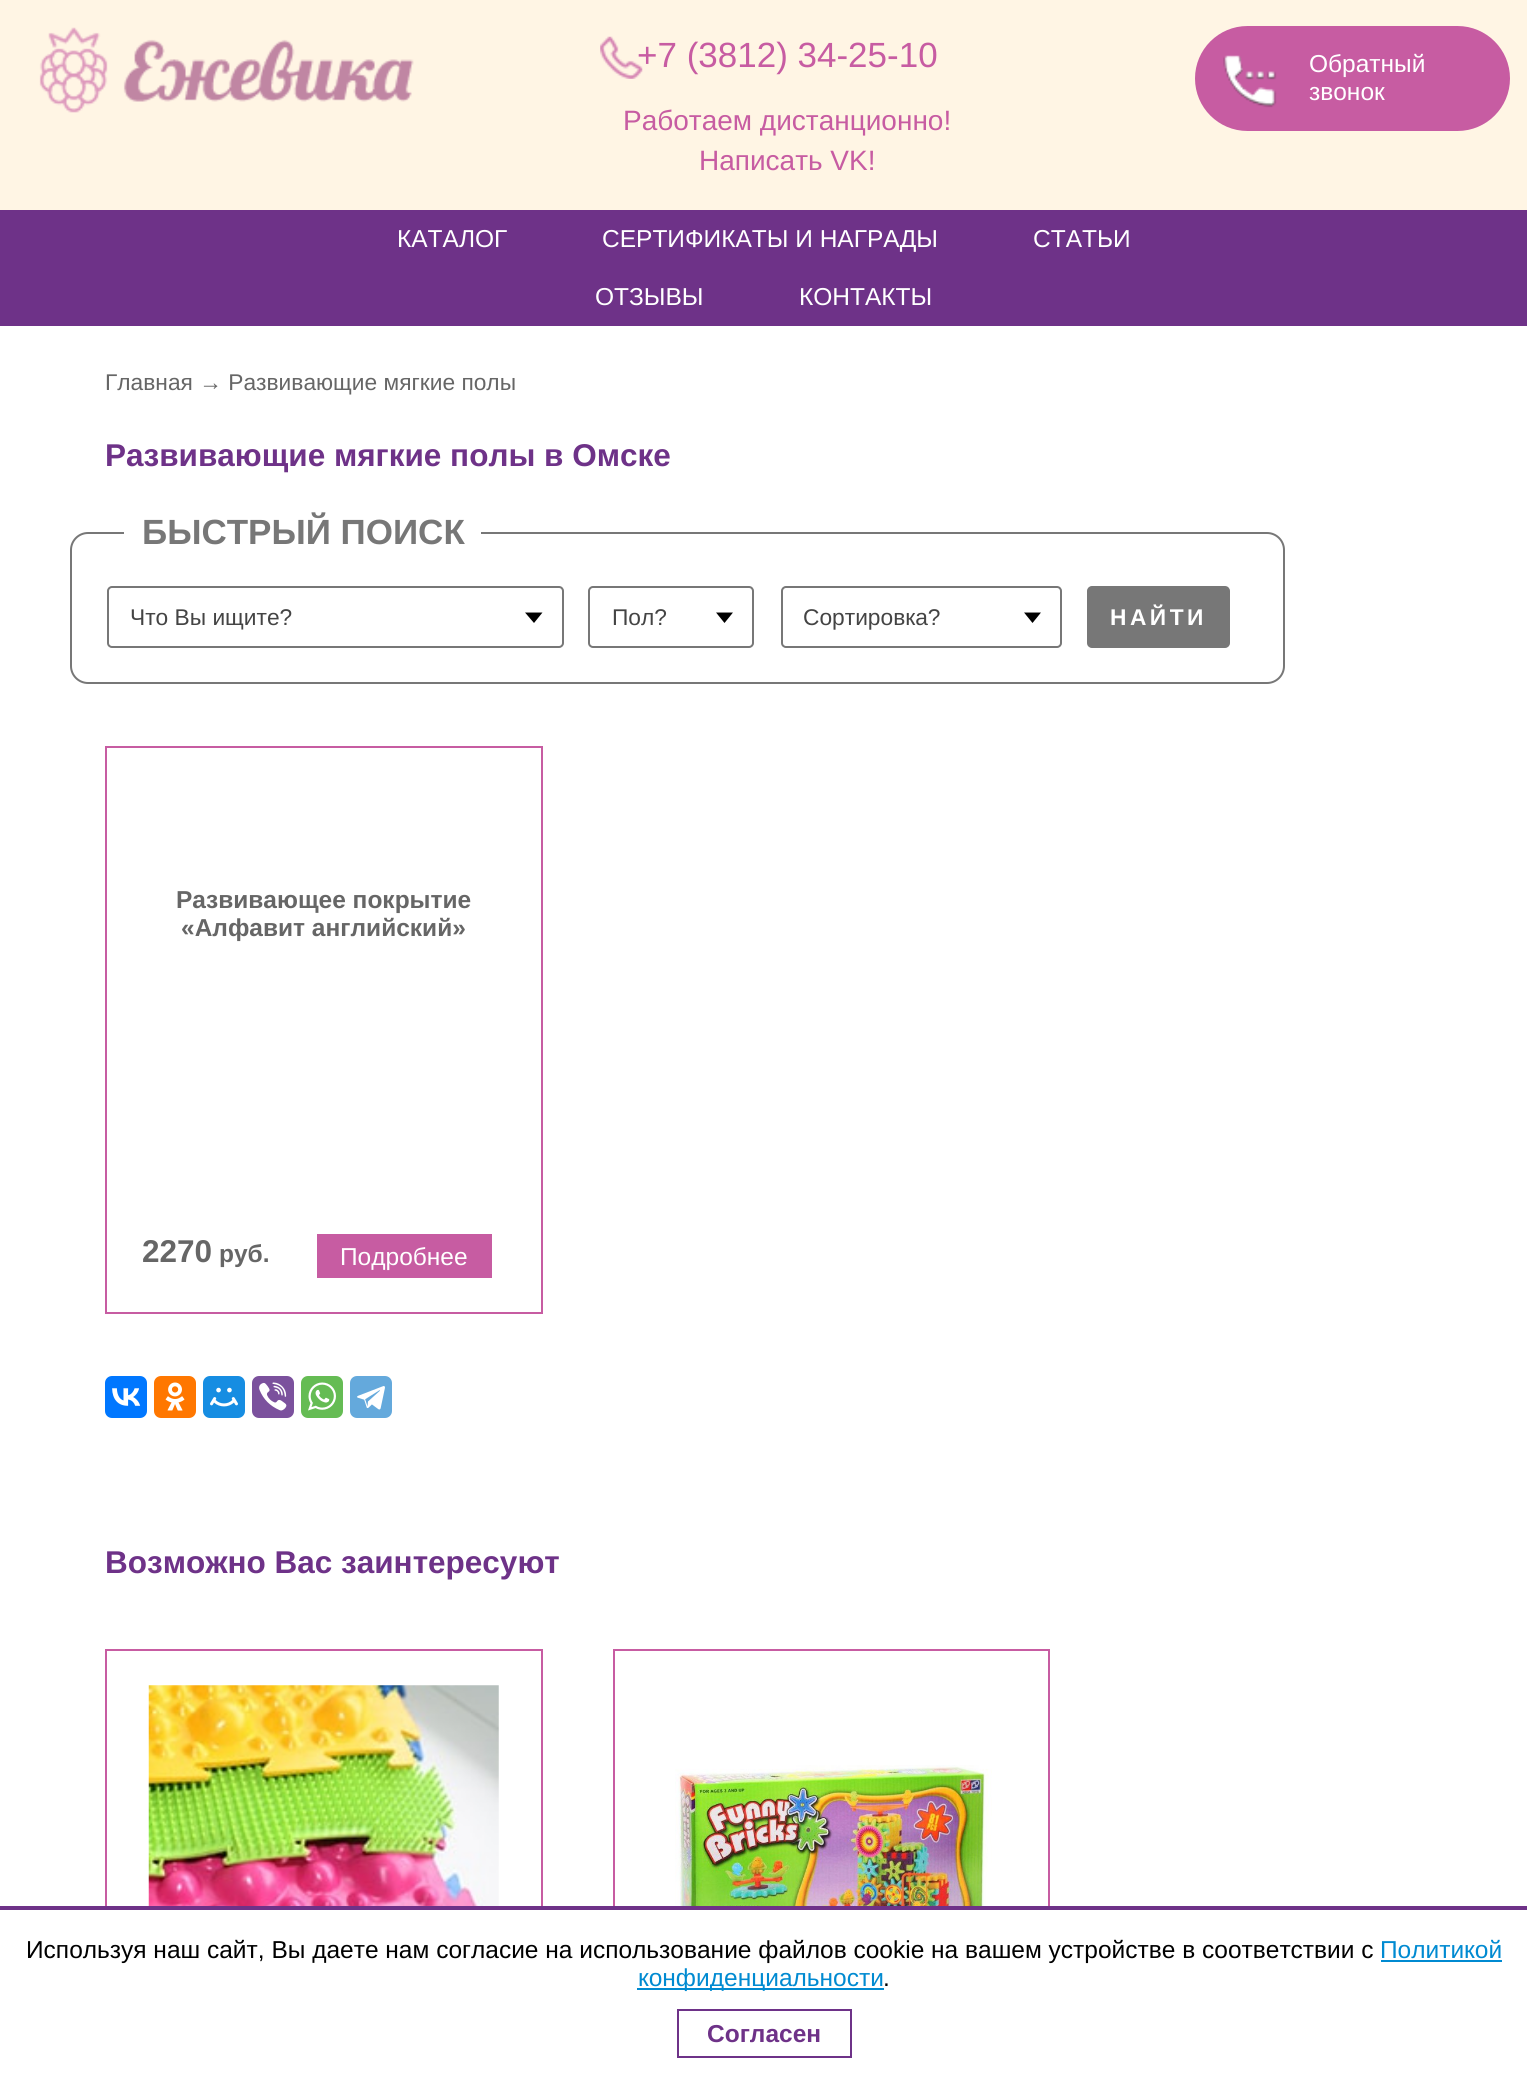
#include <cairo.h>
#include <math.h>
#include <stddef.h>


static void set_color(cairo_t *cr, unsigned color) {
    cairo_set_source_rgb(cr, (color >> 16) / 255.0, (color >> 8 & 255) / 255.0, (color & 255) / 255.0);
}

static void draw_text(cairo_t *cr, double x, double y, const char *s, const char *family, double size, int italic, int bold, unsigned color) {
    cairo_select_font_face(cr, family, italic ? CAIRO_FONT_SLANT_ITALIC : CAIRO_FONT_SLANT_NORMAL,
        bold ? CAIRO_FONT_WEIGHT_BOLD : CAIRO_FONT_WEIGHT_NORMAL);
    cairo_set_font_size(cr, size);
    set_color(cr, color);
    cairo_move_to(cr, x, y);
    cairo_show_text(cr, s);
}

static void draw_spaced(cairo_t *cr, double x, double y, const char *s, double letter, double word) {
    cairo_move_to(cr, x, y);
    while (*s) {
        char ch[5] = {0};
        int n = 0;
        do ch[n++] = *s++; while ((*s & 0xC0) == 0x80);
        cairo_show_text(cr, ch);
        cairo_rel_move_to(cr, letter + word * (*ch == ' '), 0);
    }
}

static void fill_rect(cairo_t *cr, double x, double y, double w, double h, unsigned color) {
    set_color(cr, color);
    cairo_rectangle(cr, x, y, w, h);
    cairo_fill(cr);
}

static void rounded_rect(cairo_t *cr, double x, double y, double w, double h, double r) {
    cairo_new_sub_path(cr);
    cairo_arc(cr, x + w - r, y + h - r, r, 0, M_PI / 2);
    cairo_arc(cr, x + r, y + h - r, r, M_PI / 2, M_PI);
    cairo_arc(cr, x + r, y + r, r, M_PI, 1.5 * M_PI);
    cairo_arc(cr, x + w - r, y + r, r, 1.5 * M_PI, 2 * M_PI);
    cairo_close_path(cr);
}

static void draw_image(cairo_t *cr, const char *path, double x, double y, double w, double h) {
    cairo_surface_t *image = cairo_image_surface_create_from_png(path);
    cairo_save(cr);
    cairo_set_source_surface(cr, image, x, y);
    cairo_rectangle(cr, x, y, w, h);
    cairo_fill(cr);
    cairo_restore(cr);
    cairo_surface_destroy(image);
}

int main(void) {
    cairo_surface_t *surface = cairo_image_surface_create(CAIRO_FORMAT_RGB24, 1527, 2084);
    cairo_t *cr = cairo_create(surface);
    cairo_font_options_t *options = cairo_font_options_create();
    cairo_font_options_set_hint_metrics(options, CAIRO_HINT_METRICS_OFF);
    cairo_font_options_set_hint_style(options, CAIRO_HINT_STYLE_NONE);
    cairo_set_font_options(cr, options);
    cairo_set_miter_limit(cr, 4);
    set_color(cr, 0xFFF5E4);
    cairo_paint(cr);
    draw_image(cr, "assets/img1.png", 39, 27, 375, 86);
    draw_image(cr, "assets/img2.png", 600, 36, 43, 43);
    draw_text(cr, 637, 67, "+7 (3812) 34-25-10", "Liberation Sans", 35, 0, 0, 0xC75CA2);
    draw_text(cr, 623, 130, "Работаем дистанционно!", "Liberation Sans", 28, 0, 0, 0xC75CA2);
    draw_text(cr, 699, 170, "Написать VK!", "Liberation Sans", 28, 0, 0, 0xC75CA2);
    rounded_rect(cr, 1195, 26, 315, 105, 52.5);
    cairo_fill(cr);
    draw_image(cr, "assets/img3.png", 1223, 55, 54, 53);
    draw_text(cr, 1309, 72, "Обратный", "Liberation Sans", 24.5, 0, 0, 0xFFFFFF);
    draw_text(cr, 1309, 100, "звонок", "Liberation Sans", 24.5, 0, 0, 0xFFFFFF);
    fill_rect(cr, 0, 210, 1527, 116, 0x6E3288);
    draw_text(cr, 397, 247, "КАТАЛОГ", "Liberation Sans", 24.5, 0, 0, 0xFFFFFF);
    draw_text(cr, 602, 247, "СЕРТИФИКАТЫ И НАГРАДЫ", "Liberation Sans", 24.5, 0, 0, 0xFFFFFF);
    draw_text(cr, 1033, 247, "СТАТЬИ", "Liberation Sans", 24.5, 0, 0, 0xFFFFFF);
    draw_text(cr, 595, 305, "ОТЗЫВЫ", "Liberation Sans", 24.5, 0, 0, 0xFFFFFF);
    draw_text(cr, 799, 305, "КОНТАКТЫ", "Liberation Sans", 24.5, 0, 0, 0xFFFFFF);
    fill_rect(cr, 0, 326, 1527, 1580, 0xFFFFFF);
    draw_text(cr, 105, 390, "Главная → Развивающие мягкие полы", "Liberation Sans", 22.75, 0, 0, 0x666666);
    draw_text(cr, 105, 466, "Развивающие мягкие полы в Омске", "Liberation Sans", 31.5, 0, 1, 0x6E3288);
    rounded_rect(cr, 71, 533, 1213, 150, 17);
    set_color(cr, 0x777777);
    cairo_stroke(cr);
    fill_rect(cr, 124, 532, 357, 2, 0xFFFFFF);
    draw_text(cr, 142, 544, "БЫСТРЫЙ ПОИСК", "Liberation Sans", 35, 0, 1, 0x777777);
    rounded_rect(cr, 108, 587, 455, 60, 4);
    cairo_stroke(cr);
    draw_text(cr, 130, 625, "Что Вы ищите?", "Liberation Sans", 22.75, 0, 0, 0x444444);
    set_color(cr, 0x000000);
    cairo_new_path(cr);
    cairo_move_to(cr, 525, 612.5);
    cairo_line_to(cr, 542.5, 612.5);
    cairo_line_to(cr, 534, 623);
    cairo_close_path(cr);
    cairo_fill(cr);
    rounded_rect(cr, 589, 587, 164, 60, 4);
    set_color(cr, 0x777777);
    cairo_stroke(cr);
    draw_text(cr, 612, 625, "Пол?", "Liberation Sans", 22.75, 0, 0, 0x444444);
    set_color(cr, 0x000000);
    cairo_new_path(cr);
    cairo_move_to(cr, 716, 612.5);
    cairo_line_to(cr, 733, 612.5);
    cairo_line_to(cr, 724.5, 623);
    cairo_close_path(cr);
    cairo_fill(cr);
    rounded_rect(cr, 782, 587, 279, 60, 4);
    set_color(cr, 0x777777);
    cairo_stroke(cr);
    draw_text(cr, 803, 625, "Сортировка?", "Liberation Sans", 22.75, 0, 0, 0x444444);
    set_color(cr, 0x000000);
    cairo_new_path(cr);
    cairo_move_to(cr, 1024, 612.5);
    cairo_line_to(cr, 1041, 612.5);
    cairo_line_to(cr, 1032.5, 623);
    cairo_close_path(cr);
    cairo_fill(cr);
    set_color(cr, 0x777777);
    rounded_rect(cr, 1088, 587, 141, 60, 4);
    cairo_fill_preserve(cr);
    cairo_stroke(cr);
    cairo_select_font_face(cr, "Liberation Sans", CAIRO_FONT_SLANT_NORMAL, CAIRO_FONT_WEIGHT_BOLD);
    set_color(cr, 0xFFFFFF);
    draw_spaced(cr, 1110, 625, "НАЙТИ", 3.5, 0);
    cairo_rectangle(cr, 106, 747, 436, 566);
    set_color(cr, 0xC75CA2);
    cairo_stroke(cr);
    draw_text(cr, 176, 908, "Развивающее покрытие", "Liberation Sans", 24.5, 0, 1, 0x666666);
    draw_text(cr, 181, 936, "«Алфавит английский»", "Liberation Sans", 24.5, 0, 1, 0x666666);
    draw_text(cr, 142, 1262, "2270", "Liberation Sans", 31.5, 0, 1, 0x666666);
    draw_text(cr, 219, 1262, "руб.", "Liberation Sans", 24.5, 0, 1, 0x666666);
    fill_rect(cr, 317, 1234, 175, 44, 0xC75CA2);
    draw_text(cr, 340, 1265, "Подробнее", "Liberation Sans", 24.5, 0, 0, 0xFFFFFF);
    set_color(cr, 0x0077FF);
    rounded_rect(cr, 105, 1376, 42, 42, 7);
    cairo_fill(cr);
    draw_image(cr, "assets/img4.png", 112, 1388, 29, 18);
    set_color(cr, 0xFF7700);
    rounded_rect(cr, 154, 1376, 42, 42, 7);
    cairo_fill(cr);
    draw_image(cr, "assets/img5.png", 165, 1382, 20, 29);
    set_color(cr, 0x168DE2);
    rounded_rect(cr, 203, 1376, 42, 42, 7);
    cairo_fill(cr);
    draw_image(cr, "assets/img6.png", 210, 1387, 28, 20);
    set_color(cr, 0x7B519D);
    rounded_rect(cr, 252, 1376, 42, 42, 7);
    cairo_fill(cr);
    draw_image(cr, "assets/img7.png", 259, 1382, 28, 29);
    set_color(cr, 0x65BC54);
    rounded_rect(cr, 301, 1376, 42, 42, 7);
    cairo_fill(cr);
    draw_image(cr, "assets/img8.png", 308, 1382, 28, 29);
    set_color(cr, 0x64A9DC);
    rounded_rect(cr, 350, 1376, 42, 42, 7);
    cairo_fill(cr);
    draw_image(cr, "assets/img9.png", 357, 1386, 28, 24);
    draw_text(cr, 105, 1573, "Возможно Вас заинтересуют", "Liberation Sans", 31.5, 0, 1, 0x6E3288);
    cairo_rectangle(cr, 106, 1650, 436, 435);
    set_color(cr, 0xC75CA2);
    cairo_stroke(cr);
    draw_image(cr, "assets/img10.png", 148, 1685, 351, 221);
    cairo_rectangle(cr, 614, 1650, 435, 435);
    cairo_stroke(cr);
    draw_image(cr, "assets/img11.png", 675, 1765, 317, 141);
    fill_rect(cr, 0, 1910, 1527, 174, 0xFFFFFF);
    fill_rect(cr, 0, 1906, 1527, 4, 0x6E3288);
    draw_text(cr, 26, 1958, "Используя наш сайт, Вы даете нам согласие на использование файлов cookie на вашем устройстве в соответствии с", "Liberation Sans", 24.5, 0, 0, 0x000000);
    draw_text(cr, 1380, 1958, "Политикой", "Liberation Sans", 24.5, 0, 0, 0x008AD1);
    fill_rect(cr, 1381, 1960, 121, 2, 0x008AD1);
    fill_rect(cr, 637, 1988, 247, 2, 0x008AD1);
    draw_text(cr, 638, 1986, "конфиденциальности", "Liberation Sans", 24.5, 0, 0, 0x008AD1);
    draw_text(cr, 883, 1986, ".", "Liberation Sans", 24.5, 0, 0, 0x000000);
    cairo_rectangle(cr, 678, 2010, 173, 47);
    set_color(cr, 0x6E3288);
    cairo_stroke(cr);
    draw_text(cr, 707, 2042, "Согласен", "Liberation Sans", 24.5, 0, 1, 0x6E3288);
    cairo_surface_write_to_png(surface, "output.png");
    cairo_font_options_destroy(options);
    cairo_destroy(cr);
    cairo_surface_destroy(surface);
    return 0;
}
